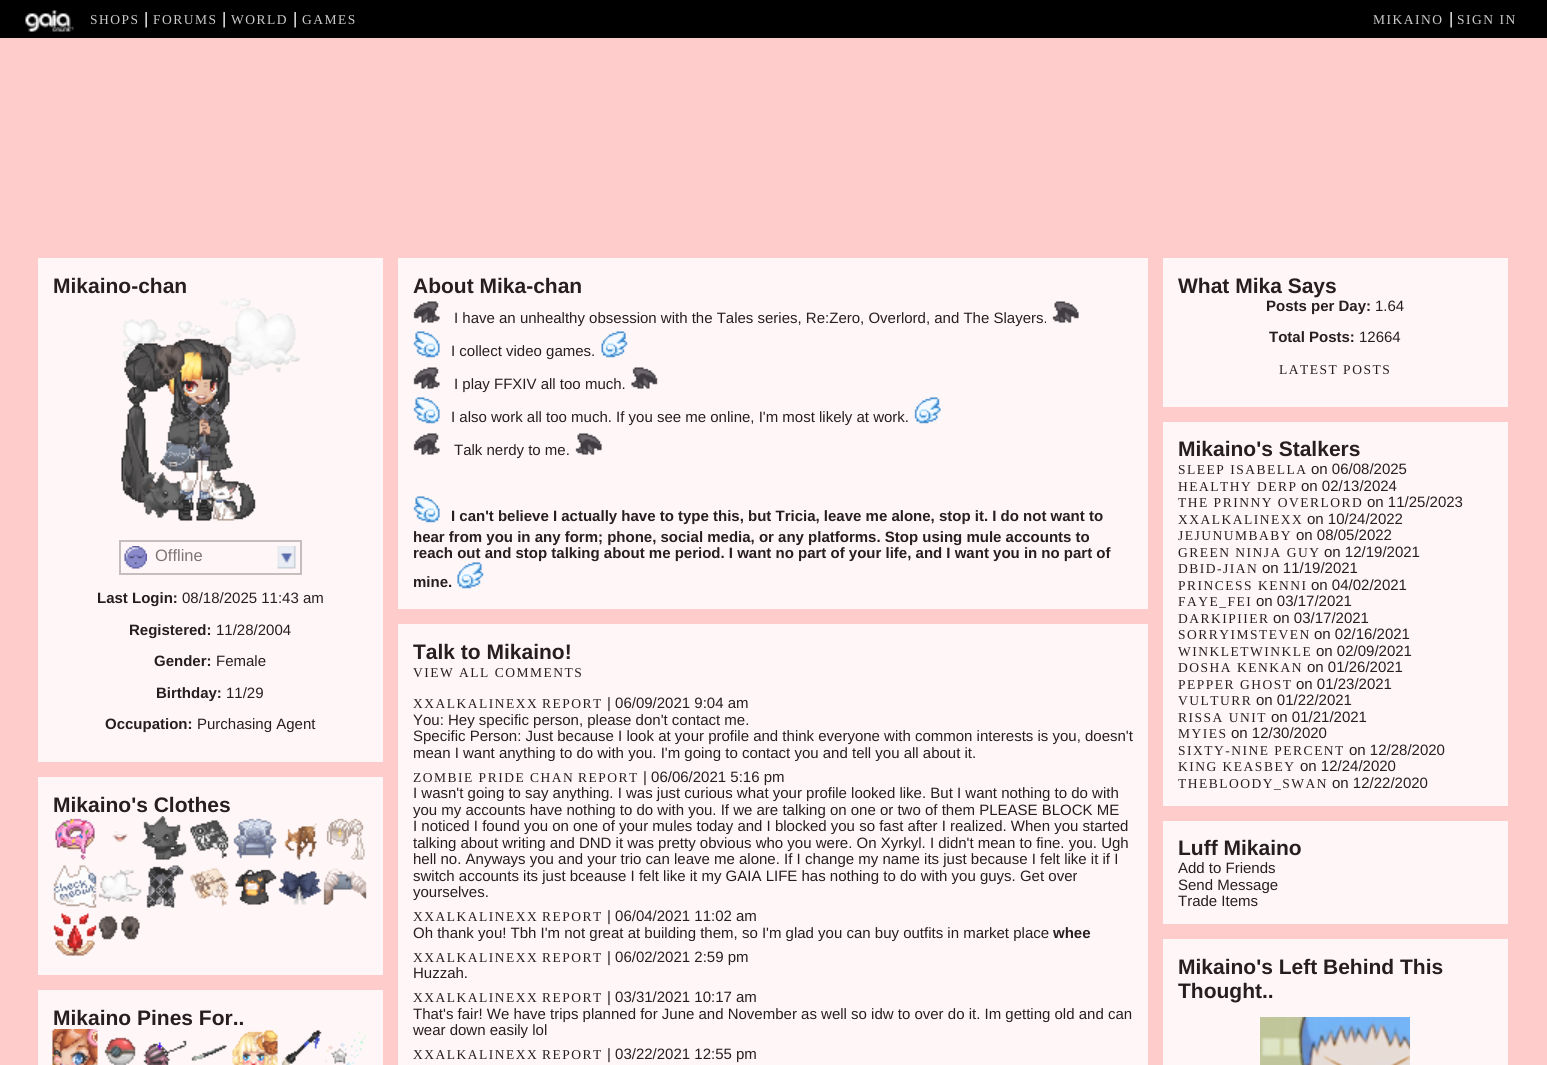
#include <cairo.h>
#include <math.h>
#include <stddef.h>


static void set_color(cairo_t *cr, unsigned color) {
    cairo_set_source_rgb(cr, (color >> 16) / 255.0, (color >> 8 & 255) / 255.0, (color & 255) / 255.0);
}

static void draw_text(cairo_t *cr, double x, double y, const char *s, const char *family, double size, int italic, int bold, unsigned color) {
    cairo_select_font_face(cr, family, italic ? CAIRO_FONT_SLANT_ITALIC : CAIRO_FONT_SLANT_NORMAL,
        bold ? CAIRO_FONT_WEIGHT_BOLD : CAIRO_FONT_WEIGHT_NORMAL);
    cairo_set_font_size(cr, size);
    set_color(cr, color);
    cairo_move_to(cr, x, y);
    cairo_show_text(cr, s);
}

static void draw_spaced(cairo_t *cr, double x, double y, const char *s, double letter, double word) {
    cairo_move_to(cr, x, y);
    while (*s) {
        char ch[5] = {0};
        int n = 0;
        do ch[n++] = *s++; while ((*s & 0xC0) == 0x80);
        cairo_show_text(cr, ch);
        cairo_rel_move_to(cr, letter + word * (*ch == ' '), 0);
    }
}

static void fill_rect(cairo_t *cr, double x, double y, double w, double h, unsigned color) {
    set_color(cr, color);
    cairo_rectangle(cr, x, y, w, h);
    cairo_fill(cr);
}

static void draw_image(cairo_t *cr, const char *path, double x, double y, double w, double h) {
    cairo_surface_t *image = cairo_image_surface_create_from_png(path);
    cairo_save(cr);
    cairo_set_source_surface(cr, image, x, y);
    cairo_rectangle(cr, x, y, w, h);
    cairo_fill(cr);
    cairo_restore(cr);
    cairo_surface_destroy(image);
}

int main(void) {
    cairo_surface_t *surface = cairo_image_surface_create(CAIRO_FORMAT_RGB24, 1547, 1065);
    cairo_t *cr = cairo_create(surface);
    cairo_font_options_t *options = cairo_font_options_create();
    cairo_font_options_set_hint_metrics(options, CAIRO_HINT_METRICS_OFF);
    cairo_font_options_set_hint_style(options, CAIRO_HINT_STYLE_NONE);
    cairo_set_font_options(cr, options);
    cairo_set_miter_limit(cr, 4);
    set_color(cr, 0xFFCCCC);
    cairo_paint(cr);
    fill_rect(cr, 0, 0, 1547, 38, 0x000000);
    draw_image(cr, "assets/img1.png", 25, 10, 49, 22);
    cairo_select_font_face(cr, "Liberation Serif", CAIRO_FONT_SLANT_NORMAL, CAIRO_FONT_WEIGHT_NORMAL);
    cairo_set_font_size(cr, 13.5);
    set_color(cr, 0xCCCCCC);
    draw_spaced(cr, 90, 24, "SHOPS", 1.5, 0);
    draw_text(cr, 144, 24, "|", "Liberation Sans", 16.5, 0, 0, 0xFFFFFF);
    cairo_select_font_face(cr, "Liberation Serif", CAIRO_FONT_SLANT_NORMAL, CAIRO_FONT_WEIGHT_NORMAL);
    cairo_set_font_size(cr, 13.5);
    set_color(cr, 0xCCCCCC);
    draw_spaced(cr, 153, 24, "FORUMS", 1.5, 0);
    draw_text(cr, 222, 24, "|", "Liberation Sans", 16.5, 0, 0, 0xFFFFFF);
    cairo_select_font_face(cr, "Liberation Serif", CAIRO_FONT_SLANT_NORMAL, CAIRO_FONT_WEIGHT_NORMAL);
    cairo_set_font_size(cr, 13.5);
    set_color(cr, 0xCCCCCC);
    draw_spaced(cr, 231, 24, "WORLD", 1.5, 0);
    draw_text(cr, 293, 24, "|", "Liberation Sans", 16.5, 0, 0, 0xFFFFFF);
    cairo_select_font_face(cr, "Liberation Serif", CAIRO_FONT_SLANT_NORMAL, CAIRO_FONT_WEIGHT_NORMAL);
    cairo_set_font_size(cr, 13.5);
    set_color(cr, 0xCCCCCC);
    draw_spaced(cr, 302, 24, "GAMES", 1.5, 0);
    draw_spaced(cr, 1373, 24, "MIKAINO", 1.5, 0);
    draw_text(cr, 1449, 24, "|", "Liberation Sans", 16.5, 0, 0, 0xFFFFFF);
    cairo_select_font_face(cr, "Liberation Serif", CAIRO_FONT_SLANT_NORMAL, CAIRO_FONT_WEIGHT_NORMAL);
    cairo_set_font_size(cr, 13.5);
    set_color(cr, 0xCCCCCC);
    draw_spaced(cr, 1457, 24, "SIGN IN", 1.5, 0);
    fill_rect(cr, 38, 258, 345, 504, 0xFFF7F7);
    draw_text(cr, 53, 293, "Mikaino-chan", "Liberation Sans", 21, 0, 1, 0x261F1F);
    draw_image(cr, "assets/img2.png", 121, 298, 179, 223);
    cairo_rectangle(cr, 120, 541, 181, 33);
    set_color(cr, 0xC5BEBE);
    cairo_stroke(cr);
    draw_image(cr, "assets/img3.png", 277, 546, 19, 23);
    draw_image(cr, "assets/img4.png", 124, 546, 23, 23);
    draw_text(cr, 155, 561, "Offline", "Liberation Sans", 16.5, 0, 0, 0x7D7575);
    draw_text(cr, 97, 603, "Last Login:", "Liberation Sans", 15, 0, 1, 0x261F1F);
    draw_text(cr, 182, 603, "08/18/2025 11:43 am", "Liberation Sans", 15, 0, 0, 0x261F1F);
    draw_text(cr, 129, 635, "Registered:", "Liberation Sans", 15, 0, 1, 0x261F1F);
    draw_text(cr, 216, 635, "11/28/2004", "Liberation Sans", 15, 0, 0, 0x261F1F);
    draw_text(cr, 154, 666, "Gender:", "Liberation Sans", 15, 0, 1, 0x261F1F);
    draw_text(cr, 216, 666, "Female", "Liberation Sans", 15, 0, 0, 0x261F1F);
    draw_text(cr, 156, 698, "Birthday:", "Liberation Sans", 15, 0, 1, 0x261F1F);
    draw_text(cr, 226, 698, "11/29", "Liberation Sans", 15, 0, 0, 0x261F1F);
    draw_text(cr, 105, 729, "Occupation:", "Liberation Sans", 15, 0, 1, 0x261F1F);
    draw_text(cr, 197, 729, "Purchasing Agent", "Liberation Sans", 15, 0, 0, 0x261F1F);
    fill_rect(cr, 38, 777, 345, 198, 0xFFF7F7);
    draw_text(cr, 53, 812, "Mikaino's Clothes", "Liberation Sans", 21, 0, 1, 0x261F1F);
    draw_image(cr, "assets/img5.png", 55, 818, 40, 42);
    draw_image(cr, "assets/img6.png", 112, 831, 16, 12);
    draw_image(cr, "assets/img7.png", 142, 816, 45, 44);
    draw_image(cr, "assets/img8.png", 190, 820, 39, 39);
    draw_image(cr, "assets/img9.png", 233, 818, 44, 41);
    draw_image(cr, "assets/img10.png", 284, 823, 33, 37);
    draw_image(cr, "assets/img11.png", 326, 818, 39, 42);
    draw_image(cr, "assets/img12.png", 337, 829, 6, 9);
    draw_image(cr, "assets/img13.png", 53, 865, 44, 43);
    draw_image(cr, "assets/img14.png", 98, 869, 44, 33);
    draw_image(cr, "assets/img15.png", 146, 865, 38, 43);
    draw_image(cr, "assets/img16.png", 190, 868, 39, 39);
    draw_image(cr, "assets/img17.png", 235, 869, 42, 36);
    draw_image(cr, "assets/img18.png", 278, 871, 44, 34);
    draw_image(cr, "assets/img19.png", 323, 868, 44, 37);
    draw_image(cr, "assets/img20.png", 53, 913, 44, 43);
    draw_image(cr, "assets/img21.png", 98, 916, 42, 24);
    fill_rect(cr, 38, 990, 345, 75, 0xFFF7F7);
    draw_text(cr, 53, 1025, "Mikaino Pines For..", "Liberation Sans", 21, 0, 1, 0x261F1F);
    draw_image(cr, "assets/img22.png", 52, 1029, 46, 36);
    draw_image(cr, "assets/img23.png", 104, 1037, 32, 28);
    draw_image(cr, "assets/img24.png", 143, 1040, 44, 25);
    draw_image(cr, "assets/img25.png", 157, 1042, 6, 9);
    draw_image(cr, "assets/img26.png", 191, 1045, 36, 16);
    draw_image(cr, "assets/img27.png", 232, 1030, 46, 35);
    draw_image(cr, "assets/img28.png", 281, 1030, 41, 35);
    draw_image(cr, "assets/img29.png", 325, 1031, 42, 34);
    fill_rect(cr, 398, 258, 750, 351, 0xFFF7F7);
    draw_text(cr, 413, 293, "About Mika-chan", "Liberation Sans", 21, 0, 1, 0x261F1F);
    draw_image(cr, "assets/img30.png", 413, 301, 27, 22);
    draw_text(cr, 454, 323, "I have an unhealthy obsession with the Tales series, Re:Zero, Overlord, and The Slayers.", "Liberation Sans", 15, 0, 0, 0x261F1F);
    draw_image(cr, "assets/img31.png", 1052, 301, 27, 22);
    draw_image(cr, "assets/img32.png", 413, 331, 27, 27);
    draw_text(cr, 451, 356, "I collect video games.", "Liberation Sans", 15, 0, 0, 0x261F1F);
    draw_image(cr, "assets/img33.png", 601, 331, 27, 27);
    draw_image(cr, "assets/img30.png", 413, 367, 27, 22);
    draw_text(cr, 454, 389, "I play FFXIV all too much.", "Liberation Sans", 15, 0, 0, 0x261F1F);
    draw_image(cr, "assets/img34.png", 631, 367, 27, 22);
    draw_image(cr, "assets/img32.png", 413, 397, 27, 27);
    draw_text(cr, 451, 422, "I also work all too much. If you see me online, I'm most likely at work.", "Liberation Sans", 15, 0, 0, 0x261F1F);
    draw_image(cr, "assets/img35.png", 914, 397, 27, 27);
    draw_image(cr, "assets/img30.png", 413, 433, 27, 22);
    draw_text(cr, 454, 455, "Talk nerdy to me.", "Liberation Sans", 15, 0, 0, 0x261F1F);
    draw_image(cr, "assets/img31.png", 575, 433, 27, 22);
    draw_image(cr, "assets/img32.png", 413, 496, 27, 27);
    draw_text(cr, 451, 521, "I can't believe I actually have to type this, but Tricia, leave me alone, stop it. I do not want to", "Liberation Sans", 15, 0, 1, 0x261F1F);
    draw_text(cr, 413, 542, "hear from you in any form; phone, social media, or any platforms. Stop using mule accounts to", "Liberation Sans", 15, 0, 1, 0x261F1F);
    draw_text(cr, 413, 558, "reach out and stop talking about me period. I want no part of your life, and I want you in no part of", "Liberation Sans", 15, 0, 1, 0x261F1F);
    draw_text(cr, 413, 587, "mine.", "Liberation Sans", 15, 0, 1, 0x261F1F);
    draw_image(cr, "assets/img36.png", 457, 562, 27, 27);
    fill_rect(cr, 398, 624, 750, 441, 0xFFF7F7);
    draw_text(cr, 413, 659, "Talk to Mikaino!", "Liberation Sans", 21, 0, 1, 0x261F1F);
    cairo_select_font_face(cr, "Liberation Serif", CAIRO_FONT_SLANT_NORMAL, CAIRO_FONT_WEIGHT_NORMAL);
    cairo_set_font_size(cr, 13.5);
    draw_spaced(cr, 413, 677, "VIEW ALL COMMENTS", 1.5, 0);
    draw_spaced(cr, 413, 708, "XXALKALINEXX", 1.5, 0);
    draw_spaced(cr, 542, 708, "REPORT", 1.5, 0);
    draw_text(cr, 607, 708, "| 06/09/2021 9:04 am", "Liberation Sans", 15, 0, 0, 0x261F1F);
    draw_text(cr, 413, 725, "You: Hey specific person, please don't contact me.", "Liberation Sans", 15, 0, 0, 0x261F1F);
    draw_text(cr, 413, 741, "Specific Person: Just because I look at your profile and think everyone with common interests is you, doesn't", "Liberation Sans", 15, 0, 0, 0x261F1F);
    cairo_save(cr);
    cairo_rectangle(cr, 413, 711, 720, 50);
    cairo_clip(cr);
    draw_text(cr, 413, 758, "mean I want anything to do with you. I'm going to contact you and tell you all about it.", "Liberation Sans", 15, 0, 0, 0x261F1F);
    cairo_restore(cr);
    cairo_select_font_face(cr, "Liberation Serif", CAIRO_FONT_SLANT_NORMAL, CAIRO_FONT_WEIGHT_NORMAL);
    cairo_set_font_size(cr, 13.5);
    draw_spaced(cr, 413, 782, "ZOMBIE PRIDE CHAN", 1.5, 0);
    draw_spaced(cr, 578, 782, "REPORT", 1.5, 0);
    draw_text(cr, 643, 782, "| 06/06/2021 5:16 pm", "Liberation Sans", 15, 0, 0, 0x261F1F);
    draw_text(cr, 413, 798, "I wasn't going to say anything. I was just curious what your profile looked like. But I want nothing to do with", "Liberation Sans", 15, 0, 0, 0x261F1F);
    draw_text(cr, 413, 815, "you my accounts have nothing to do with you. If we are talking on one or two of them PLEASE BLOCK ME", "Liberation Sans", 15, 0, 0, 0x261F1F);
    draw_text(cr, 413, 831, "I noticed I found you on one of your mules today and I blocked you so fast after I realized. When you started", "Liberation Sans", 15, 0, 0, 0x261F1F);
    draw_text(cr, 413, 848, "talking about writing and DND it was pretty obvious who you were. On Xyrkyl. I didn't mean to fine. you. Ugh", "Liberation Sans", 15, 0, 0, 0x261F1F);
    draw_text(cr, 413, 864, "hell no. Anyways you and your trio can leave me alone. If I change my name its just because I felt like it if I", "Liberation Sans", 15, 0, 0, 0x261F1F);
    draw_text(cr, 413, 881, "switch accounts its just bceause I felt like it my GAIA LIFE has nothing to do with you guys. Get over", "Liberation Sans", 15, 0, 0, 0x261F1F);
    draw_text(cr, 413, 897, "yourselves.", "Liberation Sans", 15, 0, 0, 0x261F1F);
    cairo_select_font_face(cr, "Liberation Serif", CAIRO_FONT_SLANT_NORMAL, CAIRO_FONT_WEIGHT_NORMAL);
    cairo_set_font_size(cr, 13.5);
    draw_spaced(cr, 413, 921, "XXALKALINEXX", 1.5, 0);
    draw_spaced(cr, 542, 921, "REPORT", 1.5, 0);
    draw_text(cr, 607, 921, "| 06/04/2021 11:02 am", "Liberation Sans", 15, 0, 0, 0x261F1F);
    cairo_save(cr);
    cairo_rectangle(cr, 413, 924, 720, 17);
    cairo_clip(cr);
    draw_text(cr, 413, 938, "Oh thank you! Tbh I'm not great at building them, so I'm glad you can buy outfits in market place", "Liberation Sans", 15, 0, 0, 0x261F1F);
    cairo_restore(cr);
    draw_text(cr, 1053, 938, "whee", "Liberation Sans", 15, 0, 1, 0x261F1F);
    cairo_select_font_face(cr, "Liberation Serif", CAIRO_FONT_SLANT_NORMAL, CAIRO_FONT_WEIGHT_NORMAL);
    cairo_set_font_size(cr, 13.5);
    draw_spaced(cr, 413, 962, "XXALKALINEXX", 1.5, 0);
    draw_spaced(cr, 542, 962, "REPORT", 1.5, 0);
    draw_text(cr, 607, 962, "| 06/02/2021 2:59 pm", "Liberation Sans", 15, 0, 0, 0x261F1F);
    draw_text(cr, 413, 978, "Huzzah.", "Liberation Sans", 15, 0, 0, 0x261F1F);
    cairo_select_font_face(cr, "Liberation Serif", CAIRO_FONT_SLANT_NORMAL, CAIRO_FONT_WEIGHT_NORMAL);
    cairo_set_font_size(cr, 13.5);
    draw_spaced(cr, 413, 1002, "XXALKALINEXX", 1.5, 0);
    draw_spaced(cr, 542, 1002, "REPORT", 1.5, 0);
    draw_text(cr, 607, 1002, "| 03/31/2021 10:17 am", "Liberation Sans", 15, 0, 0, 0x261F1F);
    draw_text(cr, 413, 1019, "That's fair! We have trips planned for June and November as well so idw to over do it. Im getting old and can", "Liberation Sans", 15, 0, 0, 0x261F1F);
    cairo_save(cr);
    cairo_rectangle(cr, 413, 1005, 720, 33);
    cairo_clip(cr);
    draw_text(cr, 413, 1035, "wear down easily lol", "Liberation Sans", 15, 0, 0, 0x261F1F);
    cairo_restore(cr);
    cairo_select_font_face(cr, "Liberation Serif", CAIRO_FONT_SLANT_NORMAL, CAIRO_FONT_WEIGHT_NORMAL);
    cairo_set_font_size(cr, 13.5);
    draw_spaced(cr, 413, 1059, "XXALKALINEXX", 1.5, 0);
    draw_spaced(cr, 542, 1059, "REPORT", 1.5, 0);
    draw_text(cr, 607, 1059, "| 03/22/2021 12:55 pm", "Liberation Sans", 15, 0, 0, 0x261F1F);
    fill_rect(cr, 1163, 258, 345, 149, 0xFFF7F7);
    draw_text(cr, 1178, 293, "What Mika Says", "Liberation Sans", 21, 0, 1, 0x261F1F);
    draw_text(cr, 1266, 311, "Posts per Day:", "Liberation Sans", 15, 0, 1, 0x261F1F);
    draw_text(cr, 1375, 311, "1.64", "Liberation Sans", 15, 0, 0, 0x261F1F);
    draw_text(cr, 1269, 342, "Total Posts:", "Liberation Sans", 15, 0, 1, 0x261F1F);
    draw_text(cr, 1359, 342, "12664", "Liberation Sans", 15, 0, 0, 0x261F1F);
    cairo_select_font_face(cr, "Liberation Serif", CAIRO_FONT_SLANT_NORMAL, CAIRO_FONT_WEIGHT_NORMAL);
    cairo_set_font_size(cr, 13.5);
    draw_spaced(cr, 1279, 374, "LATEST POSTS", 1.5, 0);
    fill_rect(cr, 1163, 422, 345, 384, 0xFFF7F7);
    draw_text(cr, 1178, 456, "Mikaino's Stalkers", "Liberation Sans", 21, 0, 1, 0x261F1F);
    cairo_select_font_face(cr, "Liberation Serif", CAIRO_FONT_SLANT_NORMAL, CAIRO_FONT_WEIGHT_NORMAL);
    cairo_set_font_size(cr, 13.5);
    draw_spaced(cr, 1178, 474, "SLEEP ISABELLA", 1.5, 0);
    draw_text(cr, 1311, 474, "on 06/08/2025", "Liberation Sans", 15, 0, 0, 0x261F1F);
    cairo_select_font_face(cr, "Liberation Serif", CAIRO_FONT_SLANT_NORMAL, CAIRO_FONT_WEIGHT_NORMAL);
    cairo_set_font_size(cr, 13.5);
    draw_spaced(cr, 1178, 491, "HEALTHY DERP", 1.5, 0);
    draw_text(cr, 1301, 491, "on 02/13/2024", "Liberation Sans", 15, 0, 0, 0x261F1F);
    cairo_select_font_face(cr, "Liberation Serif", CAIRO_FONT_SLANT_NORMAL, CAIRO_FONT_WEIGHT_NORMAL);
    cairo_set_font_size(cr, 13.5);
    draw_spaced(cr, 1178, 507, "THE PRINNY OVERLORD", 1.5, 0);
    draw_text(cr, 1367, 507, "on 11/25/2023", "Liberation Sans", 15, 0, 0, 0x261F1F);
    cairo_select_font_face(cr, "Liberation Serif", CAIRO_FONT_SLANT_NORMAL, CAIRO_FONT_WEIGHT_NORMAL);
    cairo_set_font_size(cr, 13.5);
    draw_spaced(cr, 1178, 524, "XXALKALINEXX", 1.5, 0);
    draw_text(cr, 1307, 524, "on 10/24/2022", "Liberation Sans", 15, 0, 0, 0x261F1F);
    cairo_select_font_face(cr, "Liberation Serif", CAIRO_FONT_SLANT_NORMAL, CAIRO_FONT_WEIGHT_NORMAL);
    cairo_set_font_size(cr, 13.5);
    draw_spaced(cr, 1178, 540, "JEJUNUMBABY", 1.5, 0);
    draw_text(cr, 1296, 540, "on 08/05/2022", "Liberation Sans", 15, 0, 0, 0x261F1F);
    cairo_select_font_face(cr, "Liberation Serif", CAIRO_FONT_SLANT_NORMAL, CAIRO_FONT_WEIGHT_NORMAL);
    cairo_set_font_size(cr, 13.5);
    draw_spaced(cr, 1178, 557, "GREEN NINJA GUY", 1.5, 0);
    draw_text(cr, 1324, 557, "on 12/19/2021", "Liberation Sans", 15, 0, 0, 0x261F1F);
    cairo_select_font_face(cr, "Liberation Serif", CAIRO_FONT_SLANT_NORMAL, CAIRO_FONT_WEIGHT_NORMAL);
    cairo_set_font_size(cr, 13.5);
    draw_spaced(cr, 1178, 573, "DBID-JIAN", 1.5, 0);
    draw_text(cr, 1262, 573, "on 11/19/2021", "Liberation Sans", 15, 0, 0, 0x261F1F);
    cairo_select_font_face(cr, "Liberation Serif", CAIRO_FONT_SLANT_NORMAL, CAIRO_FONT_WEIGHT_NORMAL);
    cairo_set_font_size(cr, 13.5);
    draw_spaced(cr, 1178, 590, "PRINCESS KENNI", 1.5, 0);
    draw_text(cr, 1311, 590, "on 04/02/2021", "Liberation Sans", 15, 0, 0, 0x261F1F);
    cairo_select_font_face(cr, "Liberation Serif", CAIRO_FONT_SLANT_NORMAL, CAIRO_FONT_WEIGHT_NORMAL);
    cairo_set_font_size(cr, 13.5);
    draw_spaced(cr, 1178, 606, "FAYE_FEI", 1.5, 0);
    draw_text(cr, 1256, 606, "on 03/17/2021", "Liberation Sans", 15, 0, 0, 0x261F1F);
    cairo_select_font_face(cr, "Liberation Serif", CAIRO_FONT_SLANT_NORMAL, CAIRO_FONT_WEIGHT_NORMAL);
    cairo_set_font_size(cr, 13.5);
    draw_spaced(cr, 1178, 623, "DARKIPIIER", 1.5, 0);
    draw_text(cr, 1273, 623, "on 03/17/2021", "Liberation Sans", 15, 0, 0, 0x261F1F);
    cairo_select_font_face(cr, "Liberation Serif", CAIRO_FONT_SLANT_NORMAL, CAIRO_FONT_WEIGHT_NORMAL);
    cairo_set_font_size(cr, 13.5);
    draw_spaced(cr, 1178, 639, "SORRYIMSTEVEN", 1.5, 0);
    draw_text(cr, 1314, 639, "on 02/16/2021", "Liberation Sans", 15, 0, 0, 0x261F1F);
    cairo_select_font_face(cr, "Liberation Serif", CAIRO_FONT_SLANT_NORMAL, CAIRO_FONT_WEIGHT_NORMAL);
    cairo_set_font_size(cr, 13.5);
    draw_spaced(cr, 1178, 656, "WINKLETWINKLE", 1.5, 0);
    draw_text(cr, 1316, 656, "on 02/09/2021", "Liberation Sans", 15, 0, 0, 0x261F1F);
    cairo_select_font_face(cr, "Liberation Serif", CAIRO_FONT_SLANT_NORMAL, CAIRO_FONT_WEIGHT_NORMAL);
    cairo_set_font_size(cr, 13.5);
    draw_spaced(cr, 1178, 672, "DOSHA KENKAN", 1.5, 0);
    draw_text(cr, 1307, 672, "on 01/26/2021", "Liberation Sans", 15, 0, 0, 0x261F1F);
    cairo_select_font_face(cr, "Liberation Serif", CAIRO_FONT_SLANT_NORMAL, CAIRO_FONT_WEIGHT_NORMAL);
    cairo_set_font_size(cr, 13.5);
    draw_spaced(cr, 1178, 689, "PEPPER GHOST", 1.5, 0);
    draw_text(cr, 1296, 689, "on 01/23/2021", "Liberation Sans", 15, 0, 0, 0x261F1F);
    cairo_select_font_face(cr, "Liberation Serif", CAIRO_FONT_SLANT_NORMAL, CAIRO_FONT_WEIGHT_NORMAL);
    cairo_set_font_size(cr, 13.5);
    draw_spaced(cr, 1178, 705, "VULTURR", 1.5, 0);
    draw_text(cr, 1256, 705, "on 01/22/2021", "Liberation Sans", 15, 0, 0, 0x261F1F);
    cairo_select_font_face(cr, "Liberation Serif", CAIRO_FONT_SLANT_NORMAL, CAIRO_FONT_WEIGHT_NORMAL);
    cairo_set_font_size(cr, 13.5);
    draw_spaced(cr, 1178, 722, "RISSA UNIT", 1.5, 0);
    draw_text(cr, 1271, 722, "on 01/21/2021", "Liberation Sans", 15, 0, 0, 0x261F1F);
    cairo_select_font_face(cr, "Liberation Serif", CAIRO_FONT_SLANT_NORMAL, CAIRO_FONT_WEIGHT_NORMAL);
    cairo_set_font_size(cr, 13.5);
    draw_spaced(cr, 1178, 738, "MYIES", 1.5, 0);
    draw_text(cr, 1231, 738, "on 12/30/2020", "Liberation Sans", 15, 0, 0, 0x261F1F);
    cairo_select_font_face(cr, "Liberation Serif", CAIRO_FONT_SLANT_NORMAL, CAIRO_FONT_WEIGHT_NORMAL);
    cairo_set_font_size(cr, 13.5);
    draw_spaced(cr, 1178, 755, "SIXTY-NINE PERCENT", 1.5, 0);
    draw_text(cr, 1349, 755, "on 12/28/2020", "Liberation Sans", 15, 0, 0, 0x261F1F);
    cairo_select_font_face(cr, "Liberation Serif", CAIRO_FONT_SLANT_NORMAL, CAIRO_FONT_WEIGHT_NORMAL);
    cairo_set_font_size(cr, 13.5);
    draw_spaced(cr, 1178, 771, "KING KEASBEY", 1.5, 0);
    draw_text(cr, 1300, 771, "on 12/24/2020", "Liberation Sans", 15, 0, 0, 0x261F1F);
    cairo_select_font_face(cr, "Liberation Serif", CAIRO_FONT_SLANT_NORMAL, CAIRO_FONT_WEIGHT_NORMAL);
    cairo_set_font_size(cr, 13.5);
    draw_spaced(cr, 1178, 788, "THEBLOODY_SWAN", 1.5, 0);
    draw_text(cr, 1332, 788, "on 12/22/2020", "Liberation Sans", 15, 0, 0, 0x261F1F);
    fill_rect(cr, 1163, 821, 345, 103, 0xFFF7F7);
    draw_text(cr, 1178, 855, "Luff Mikaino", "Liberation Sans", 21, 0, 1, 0x261F1F);
    draw_text(cr, 1178, 873, "Add to Friends", "Liberation Sans", 15, 0, 0, 0x261F1F);
    draw_text(cr, 1178, 890, "Send Message", "Liberation Sans", 15, 0, 0, 0x261F1F);
    draw_text(cr, 1178, 906, "Trade Items", "Liberation Sans", 15, 0, 0, 0x261F1F);
    fill_rect(cr, 1163, 939, 345, 126, 0xFFF7F7);
    draw_text(cr, 1178, 974, "Mikaino's Left Behind This", "Liberation Sans", 21, 0, 1, 0x261F1F);
    draw_text(cr, 1178, 998, "Thought..", "Liberation Sans", 21, 0, 1, 0x261F1F);
    draw_image(cr, "assets/img37.png", 1260, 1017, 150, 48);
    cairo_surface_write_to_png(surface, "output.png");
    cairo_font_options_destroy(options);
    cairo_destroy(cr);
    cairo_surface_destroy(surface);
    return 0;
}
